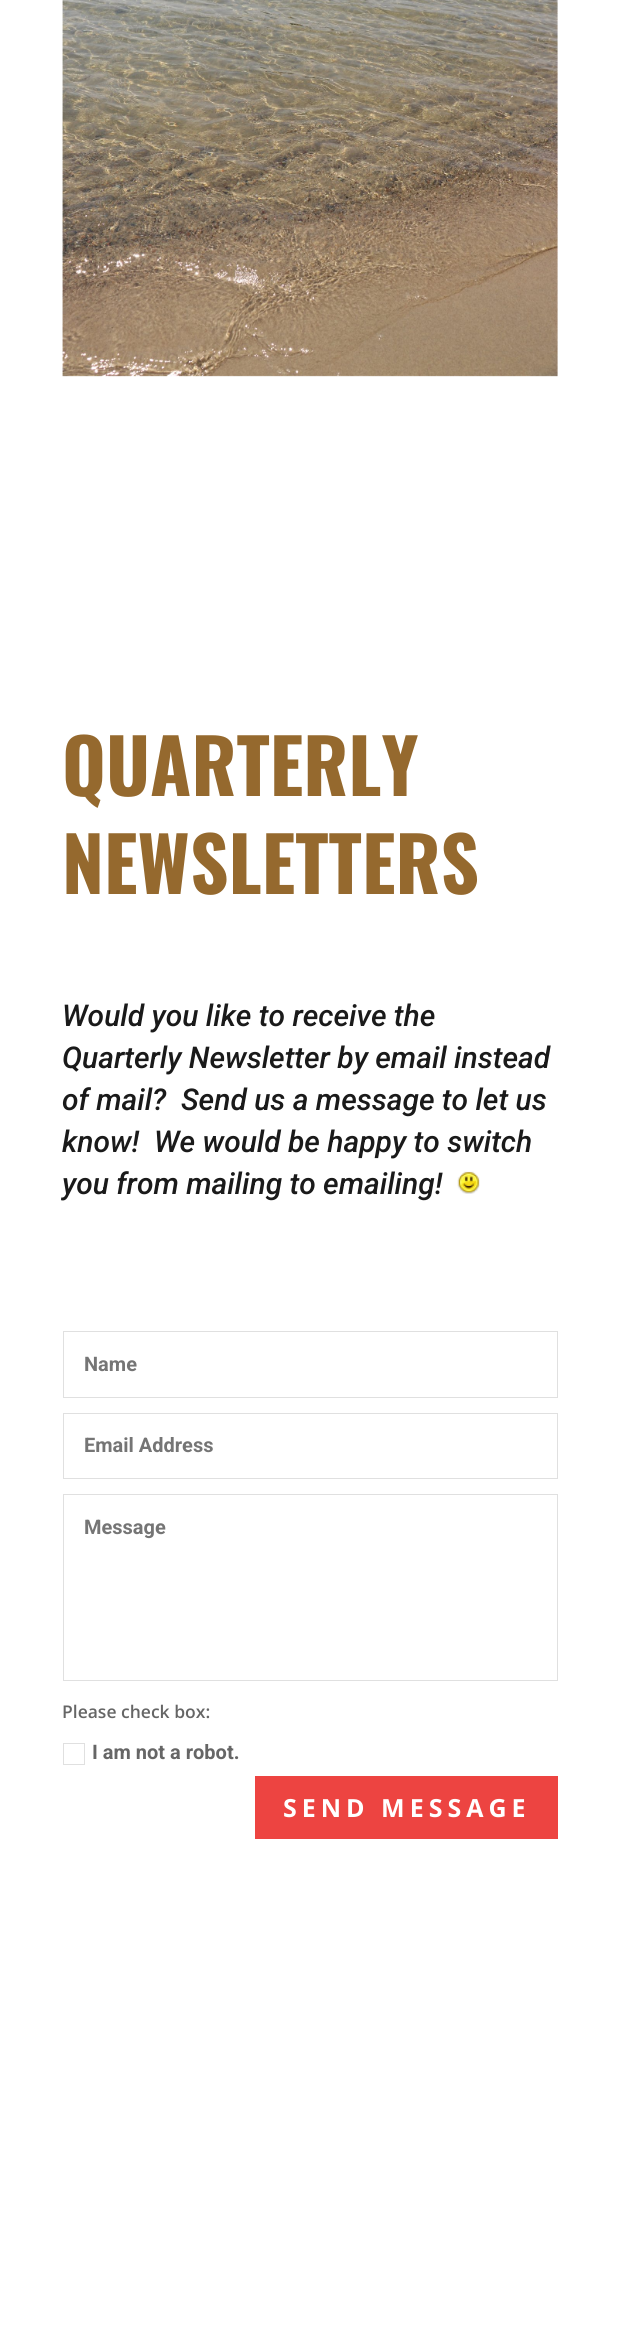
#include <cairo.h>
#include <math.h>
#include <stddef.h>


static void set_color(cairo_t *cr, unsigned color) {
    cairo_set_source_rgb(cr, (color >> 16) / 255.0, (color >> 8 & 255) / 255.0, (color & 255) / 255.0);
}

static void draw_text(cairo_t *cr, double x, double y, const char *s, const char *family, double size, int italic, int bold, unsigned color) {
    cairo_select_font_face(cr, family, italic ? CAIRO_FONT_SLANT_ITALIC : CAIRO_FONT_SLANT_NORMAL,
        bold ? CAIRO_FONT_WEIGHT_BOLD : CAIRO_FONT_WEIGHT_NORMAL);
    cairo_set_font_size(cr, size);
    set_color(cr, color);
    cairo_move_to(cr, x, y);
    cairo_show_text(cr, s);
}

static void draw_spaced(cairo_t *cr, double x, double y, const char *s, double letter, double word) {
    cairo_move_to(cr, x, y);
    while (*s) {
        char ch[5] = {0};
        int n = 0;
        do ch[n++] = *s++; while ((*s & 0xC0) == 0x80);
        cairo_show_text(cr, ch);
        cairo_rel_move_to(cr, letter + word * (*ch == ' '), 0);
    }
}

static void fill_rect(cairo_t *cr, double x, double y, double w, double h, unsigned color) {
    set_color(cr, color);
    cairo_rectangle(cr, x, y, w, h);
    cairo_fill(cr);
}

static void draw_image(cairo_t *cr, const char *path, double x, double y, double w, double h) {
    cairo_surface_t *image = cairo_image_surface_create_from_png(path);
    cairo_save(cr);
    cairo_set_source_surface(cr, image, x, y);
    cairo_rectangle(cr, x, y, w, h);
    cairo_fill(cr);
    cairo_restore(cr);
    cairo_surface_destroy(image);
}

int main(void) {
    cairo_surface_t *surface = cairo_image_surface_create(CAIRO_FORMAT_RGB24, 620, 2352);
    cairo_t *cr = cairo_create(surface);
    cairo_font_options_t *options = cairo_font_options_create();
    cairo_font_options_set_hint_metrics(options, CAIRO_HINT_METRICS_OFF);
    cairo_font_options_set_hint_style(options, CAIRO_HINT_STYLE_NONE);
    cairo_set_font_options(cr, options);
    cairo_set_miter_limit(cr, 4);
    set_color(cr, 0xFFFFFF);
    cairo_paint(cr);
    draw_image(cr, "assets/img1.png", 62, 0, 496, 377);
    draw_text(cr, 62, 796, "QUARTERLY", "Oswald", 75, 0, 1, 0x95692E);
    draw_text(cr, 62, 894, "NEWSLETTERS", "Oswald", 75, 0, 1, 0x95692E);
    draw_text(cr, 62, 1026, "Would you like to receive the", "Roboto Medium", 30, 1, 0, 0x1A1A1A);
    draw_text(cr, 62, 1068, "Quarterly Newsletter by email instead", "Roboto Medium", 30, 1, 0, 0x1A1A1A);
    draw_text(cr, 62, 1110, "of mail?  Send us a message to let us", "Roboto Medium", 30, 1, 0, 0x1A1A1A);
    draw_text(cr, 62, 1152, "know!  We would be happy to switch", "Roboto Medium", 30, 1, 0, 0x1A1A1A);
    draw_text(cr, 62, 1194, "you from mailing to emailing!", "Roboto Medium", 30, 1, 0, 0x1A1A1A);
    draw_image(cr, "assets/img2.png", 457, 1171, 23, 23);
    cairo_rectangle(cr, 63.5, 1331.5, 494, 66);
    set_color(cr, 0xE0E0E0);
    cairo_set_line_width(cr, 1);
    cairo_stroke(cr);
    draw_text(cr, 84, 1371, "Name", "Roboto", 20, 0, 1, 0x757575);
    cairo_rectangle(cr, 63.5, 1413.5, 494, 65);
    set_color(cr, 0xE0E0E0);
    cairo_stroke(cr);
    draw_text(cr, 84, 1452, "Email Address", "Roboto", 20, 0, 1, 0x757575);
    cairo_rectangle(cr, 63.5, 1494.5, 494, 186);
    set_color(cr, 0xE0E0E0);
    cairo_stroke(cr);
    draw_text(cr, 84, 1534, "Message", "Roboto", 20, 0, 1, 0x757575);
    draw_text(cr, 62, 1718, "Please check box:", "Open Sans SemiBold", 17.5, 0, 0, 0x666666);
    cairo_rectangle(cr, 63.5, 1743.5, 21, 21);
    set_color(cr, 0xE0E0E0);
    cairo_stroke(cr);
    draw_text(cr, 92, 1759, "I am not a robot.", "Roboto", 20, 0, 1, 0x666666);
    fill_rect(cr, 255, 1776, 303, 63, 0xED4441);
    cairo_select_font_face(cr, "Open Sans", CAIRO_FONT_SLANT_NORMAL, CAIRO_FONT_WEIGHT_BOLD);
    cairo_set_font_size(cr, 25);
    set_color(cr, 0xFFFFFF);
    draw_spaced(cr, 283, 1817, "SEND MESSAGE", 5, 0);
    cairo_surface_write_to_png(surface, "output.png");
    cairo_font_options_destroy(options);
    cairo_destroy(cr);
    cairo_surface_destroy(surface);
    return 0;
}
